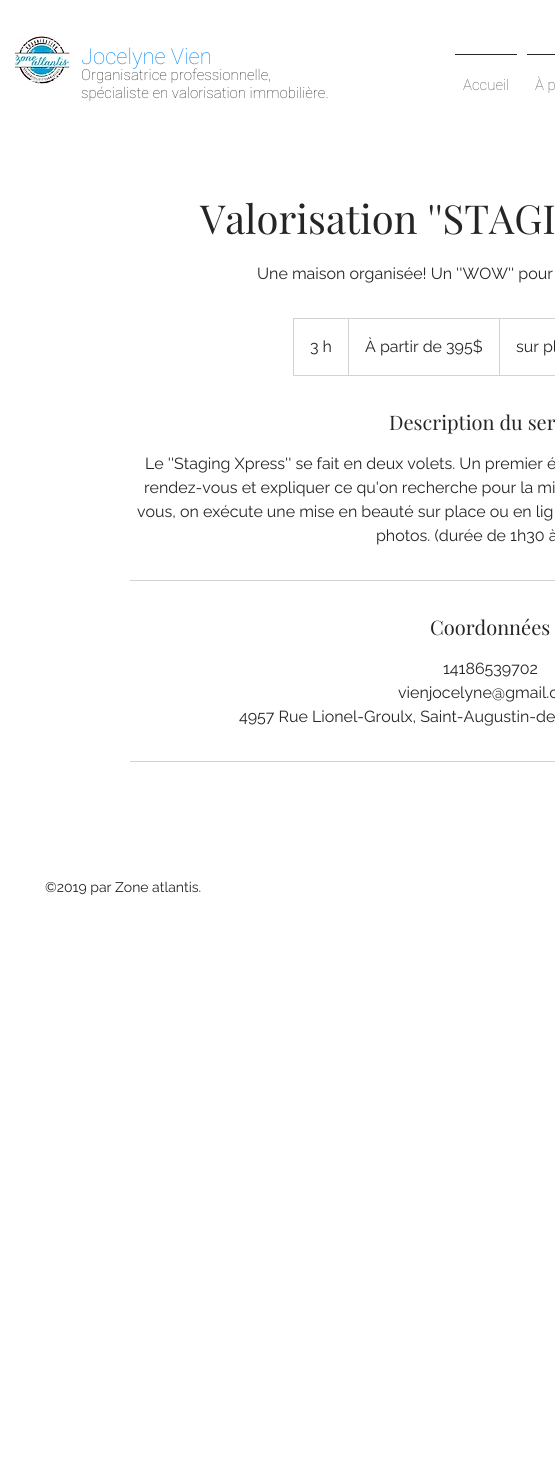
#include <cairo.h>
#include <math.h>
#include <stddef.h>


static void set_color(cairo_t *cr, unsigned color) {
    cairo_set_source_rgb(cr, (color >> 16) / 255.0, (color >> 8 & 255) / 255.0, (color & 255) / 255.0);
}

static void draw_text(cairo_t *cr, double x, double y, const char *s, const char *family, double size, int italic, int bold, unsigned color) {
    cairo_select_font_face(cr, family, italic ? CAIRO_FONT_SLANT_ITALIC : CAIRO_FONT_SLANT_NORMAL,
        bold ? CAIRO_FONT_WEIGHT_BOLD : CAIRO_FONT_WEIGHT_NORMAL);
    cairo_set_font_size(cr, size);
    set_color(cr, color);
    cairo_move_to(cr, x, y);
    cairo_show_text(cr, s);
}

static void fill_rect(cairo_t *cr, double x, double y, double w, double h, unsigned color) {
    set_color(cr, color);
    cairo_rectangle(cr, x, y, w, h);
    cairo_fill(cr);
}

static void draw_image(cairo_t *cr, const char *path, double x, double y, double w, double h) {
    cairo_surface_t *image = cairo_image_surface_create_from_png(path);
    cairo_save(cr);
    cairo_set_source_surface(cr, image, x, y);
    cairo_rectangle(cr, x, y, w, h);
    cairo_fill(cr);
    cairo_restore(cr);
    cairo_surface_destroy(image);
}

int main(void) {
    cairo_surface_t *surface = cairo_image_surface_create(CAIRO_FORMAT_RGB24, 555, 1477);
    cairo_t *cr = cairo_create(surface);
    cairo_font_options_t *options = cairo_font_options_create();
    cairo_font_options_set_hint_metrics(options, CAIRO_HINT_METRICS_OFF);
    cairo_font_options_set_hint_style(options, CAIRO_HINT_STYLE_NONE);
    cairo_set_font_options(cr, options);
    cairo_set_miter_limit(cr, 4);
    set_color(cr, 0xFFFFFF);
    cairo_paint(cr);
    draw_image(cr, "assets/img1.png", 15, 36, 55, 48);
    draw_text(cr, 81, 64, "Jocelyne Vien", "Roboto Thin", 22, 0, 0, 0x008AFC);
    draw_text(cr, 81, 80, "Organisatrice professionnelle,", "Roboto Thin", 15, 0, 0, 0x252525);
    draw_text(cr, 81, 98, "spécialiste en valorisation immobilière.", "Roboto Thin", 15, 0, 0, 0x252525);
    fill_rect(cr, 455, 54, 62, 1, 0x252525);
    draw_text(cr, 463, 90, "Accueil", "Roboto Thin", 15, 0, 0, 0x4A4A4A);
    fill_rect(cr, 527, 54, 28, 1, 0x252525);
    draw_text(cr, 535, 90, "À p", "Roboto Thin", 15, 0, 0, 0x4A4A4A);
    draw_text(cr, 200, 234, "Valorisation ''STAGI", "Playfair Display", 40, 0, 0, 0x252525);
    draw_text(cr, 257, 279, "Une maison organisée! Un ''WOW'' pour", "Raleway", 16, 0, 0, 0x252525);
    cairo_rectangle(cr, 293.5, 318.5, 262, 57);
    set_color(cr, 0xD3D3D3);
    cairo_set_line_width(cr, 1);
    cairo_stroke(cr);
    draw_text(cr, 310, 352, "3 h", "Raleway", 16, 0, 0, 0x252525);
    set_color(cr, 0xD3D3D3);
    cairo_new_path(cr);
    cairo_move_to(cr, 348, 375);
    cairo_line_to(cr, 348, 318);
    cairo_line_to(cr, 349, 319);
    cairo_line_to(cr, 349, 375);
    cairo_close_path(cr);
    cairo_fill(cr);
    draw_text(cr, 365, 352, "À partir de 395$", "Raleway", 16, 0, 0, 0x252525);
    set_color(cr, 0xD3D3D3);
    cairo_new_path(cr);
    cairo_move_to(cr, 499, 375);
    cairo_line_to(cr, 499, 318);
    cairo_line_to(cr, 500, 319);
    cairo_line_to(cr, 500, 375);
    cairo_close_path(cr);
    cairo_fill(cr);
    draw_text(cr, 516, 352, "sur pl", "Raleway", 16, 0, 0, 0x252525);
    draw_text(cr, 389, 430, "Description du ser", "Playfair Display", 20, 0, 0, 0x252525);
    draw_text(cr, 145, 469, "Le ''Staging Xpress'' se fait en deux volets. Un premier é", "Raleway", 16, 0, 0, 0x252525);
    draw_text(cr, 144, 493, "rendez-vous et expliquer ce qu'on recherche pour la mi", "Raleway", 16, 0, 0, 0x252525);
    draw_text(cr, 137, 517, "vous, on exécute une mise en beauté sur place ou en lig", "Raleway", 16, 0, 0, 0x252525);
    draw_text(cr, 376, 541, "photos. (durée de 1h30 à", "Raleway", 16, 0, 0, 0x252525);
    fill_rect(cr, 130, 580, 425, 1, 0xD3D3D3);
    draw_text(cr, 430, 635, "Coordonnées", "Playfair Display", 20, 0, 0, 0x252525);
    draw_text(cr, 443, 674, "14186539702", "Raleway", 16, 0, 0, 0x252525);
    draw_text(cr, 398, 698, "vienjocelyne@gmail.c", "Raleway", 16, 0, 0, 0x252525);
    draw_text(cr, 239, 722, "4957 Rue Lionel-Groulx, Saint-Augustin-de", "Raleway", 16, 0, 0, 0x252525);
    fill_rect(cr, 130, 761, 425, 1, 0xD3D3D3);
    draw_text(cr, 45, 892, "©2019 par Zone atlantis.", "Raleway", 14, 0, 0, 0x252525);
    cairo_surface_write_to_png(surface, "output.png");
    cairo_font_options_destroy(options);
    cairo_destroy(cr);
    cairo_surface_destroy(surface);
    return 0;
}
